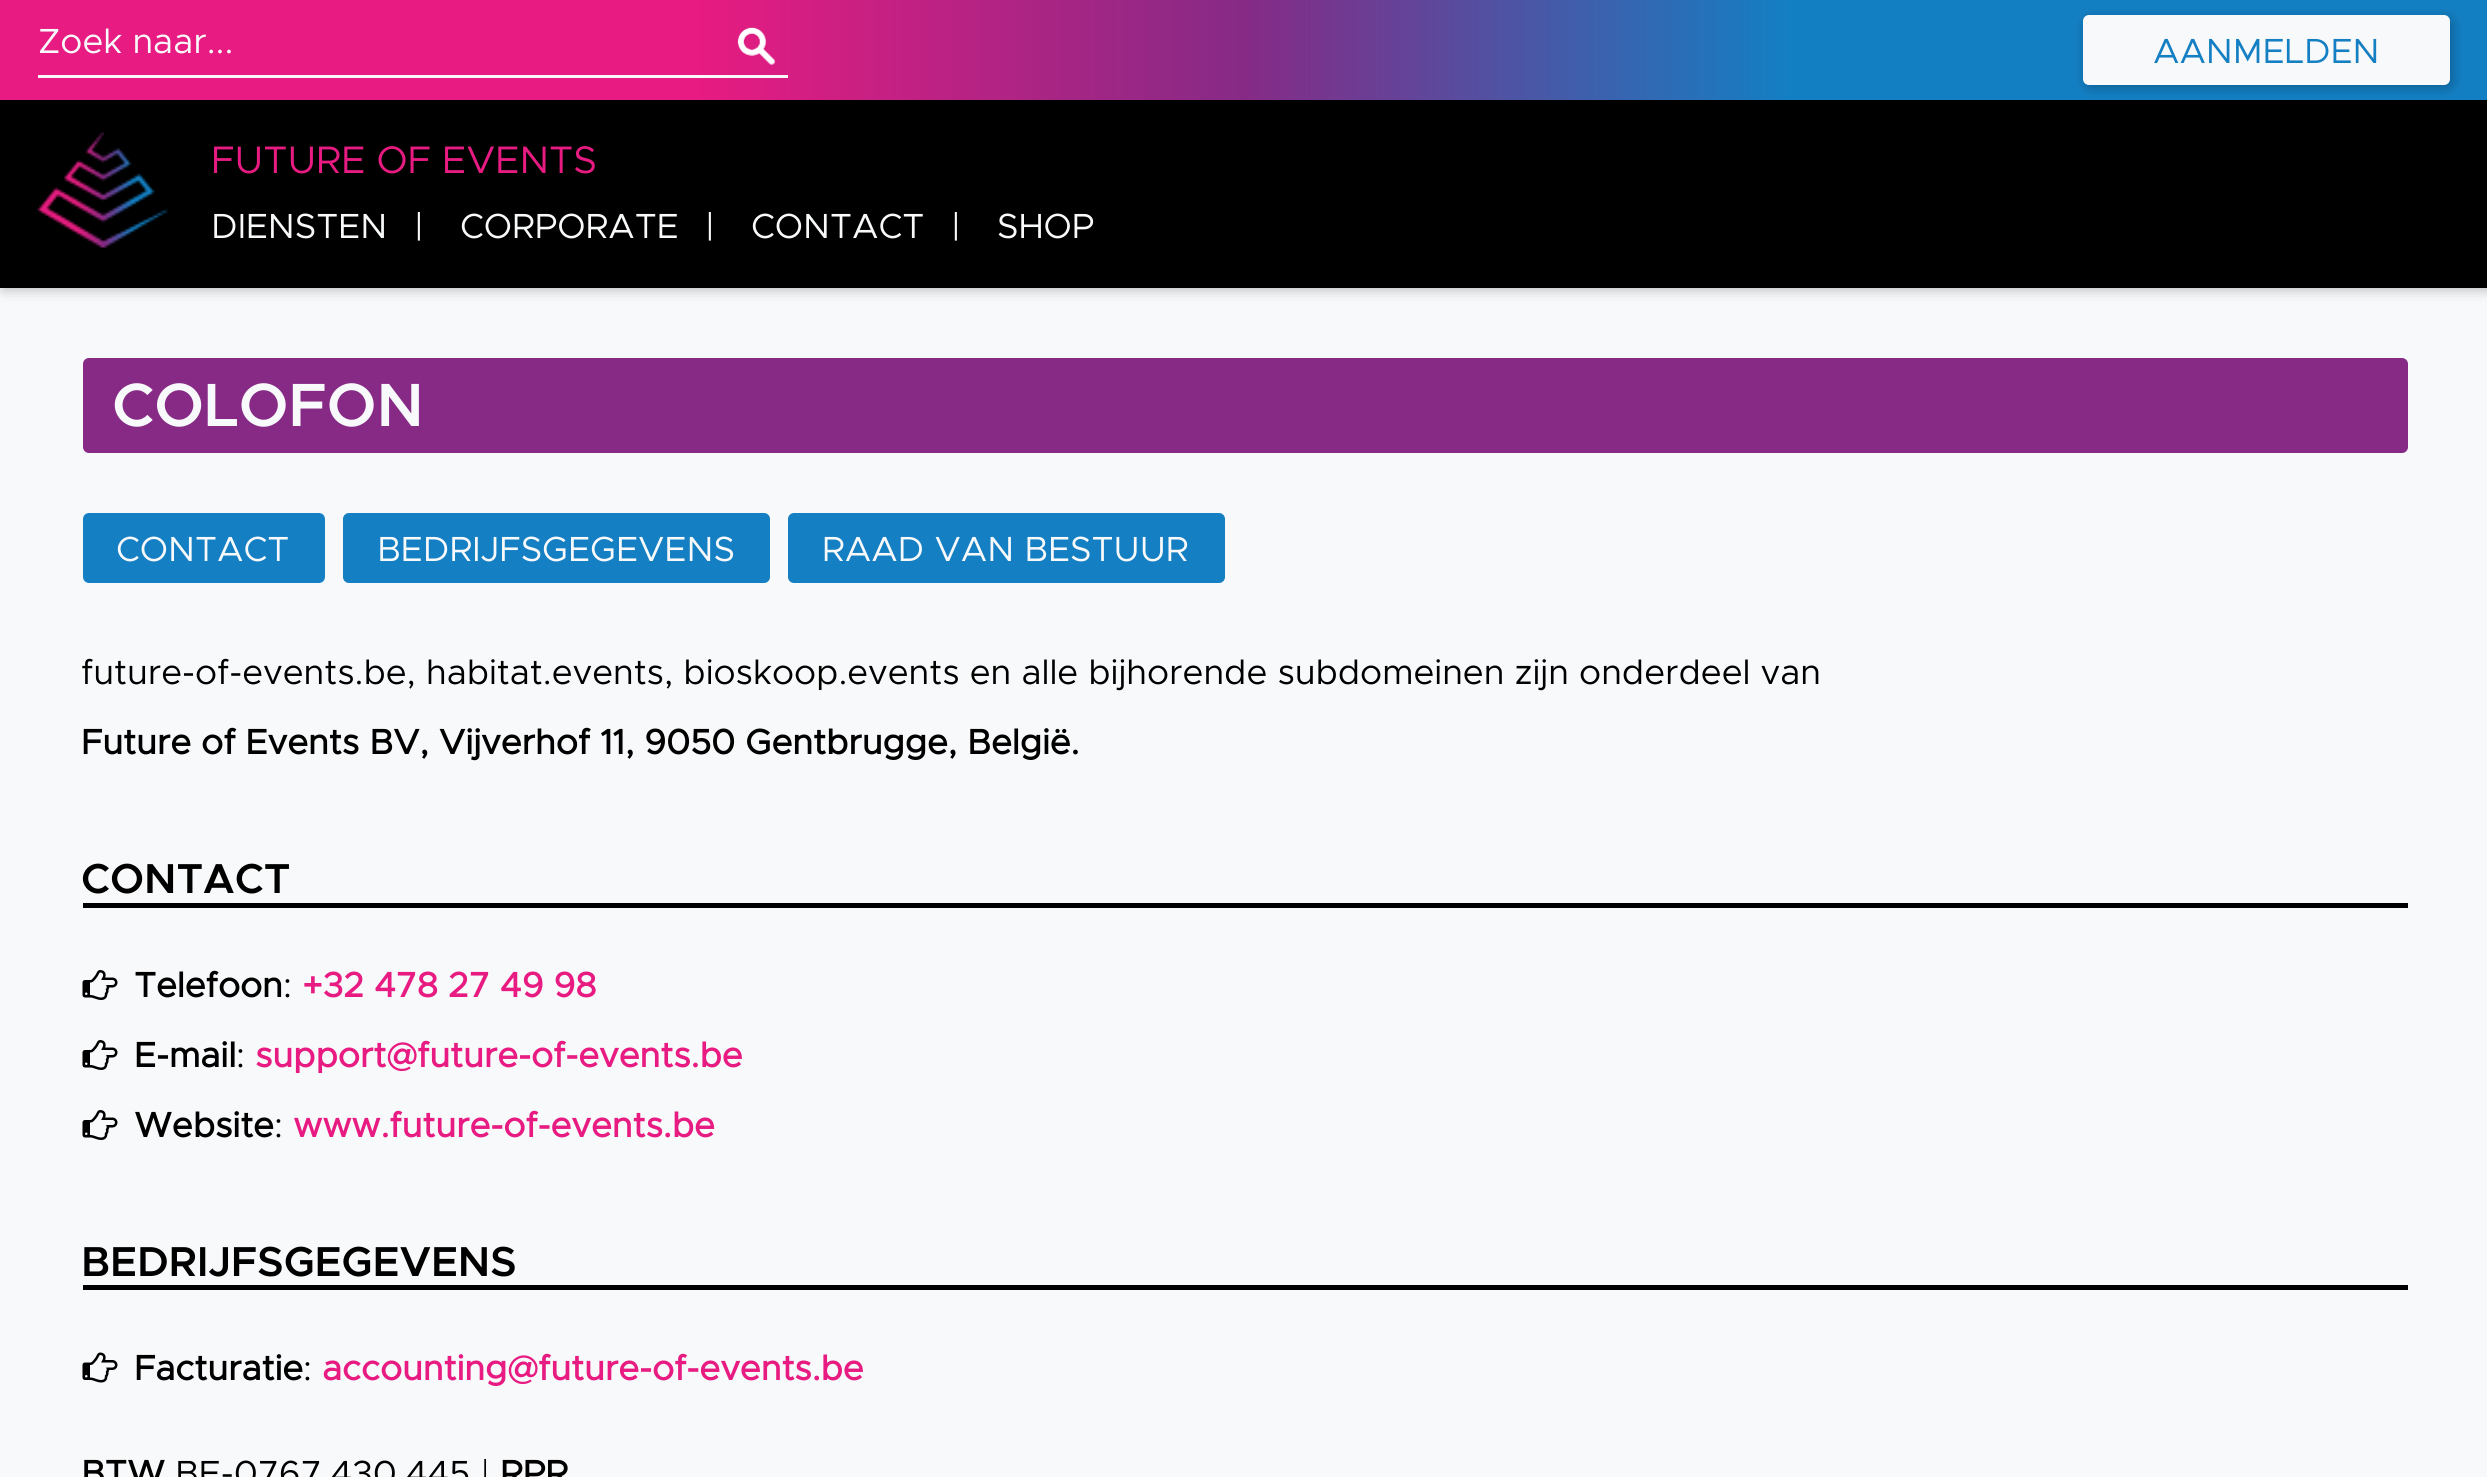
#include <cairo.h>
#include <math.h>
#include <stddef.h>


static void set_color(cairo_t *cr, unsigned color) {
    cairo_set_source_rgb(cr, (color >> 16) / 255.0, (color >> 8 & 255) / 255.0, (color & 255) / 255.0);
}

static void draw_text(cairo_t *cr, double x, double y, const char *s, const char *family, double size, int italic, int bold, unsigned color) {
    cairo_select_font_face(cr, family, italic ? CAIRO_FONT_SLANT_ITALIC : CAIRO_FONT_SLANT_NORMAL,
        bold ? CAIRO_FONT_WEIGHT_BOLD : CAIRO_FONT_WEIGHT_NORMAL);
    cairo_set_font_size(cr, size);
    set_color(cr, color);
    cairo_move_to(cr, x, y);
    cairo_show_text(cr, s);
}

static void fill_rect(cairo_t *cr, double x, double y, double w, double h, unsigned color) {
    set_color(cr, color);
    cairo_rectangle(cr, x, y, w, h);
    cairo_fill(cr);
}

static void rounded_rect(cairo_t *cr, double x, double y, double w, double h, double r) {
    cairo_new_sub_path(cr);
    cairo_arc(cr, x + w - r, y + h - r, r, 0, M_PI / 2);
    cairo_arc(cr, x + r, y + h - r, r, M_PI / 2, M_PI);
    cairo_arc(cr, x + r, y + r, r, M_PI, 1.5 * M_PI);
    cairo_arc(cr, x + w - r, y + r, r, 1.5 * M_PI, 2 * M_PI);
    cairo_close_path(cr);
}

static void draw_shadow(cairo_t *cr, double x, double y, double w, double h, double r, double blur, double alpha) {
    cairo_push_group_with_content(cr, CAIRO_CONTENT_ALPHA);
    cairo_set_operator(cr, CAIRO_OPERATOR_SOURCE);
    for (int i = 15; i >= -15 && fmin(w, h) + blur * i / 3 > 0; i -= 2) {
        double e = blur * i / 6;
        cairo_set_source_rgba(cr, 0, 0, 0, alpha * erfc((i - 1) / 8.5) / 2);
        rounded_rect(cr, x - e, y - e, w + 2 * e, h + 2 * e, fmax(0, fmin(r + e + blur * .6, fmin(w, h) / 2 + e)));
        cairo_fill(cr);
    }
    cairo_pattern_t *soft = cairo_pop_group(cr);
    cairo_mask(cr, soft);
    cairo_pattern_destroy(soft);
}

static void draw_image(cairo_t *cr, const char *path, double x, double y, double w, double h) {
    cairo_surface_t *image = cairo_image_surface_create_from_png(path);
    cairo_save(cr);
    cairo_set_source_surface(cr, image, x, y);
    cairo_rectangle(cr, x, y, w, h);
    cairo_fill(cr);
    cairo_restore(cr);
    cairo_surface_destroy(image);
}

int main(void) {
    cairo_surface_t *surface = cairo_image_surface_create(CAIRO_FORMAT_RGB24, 2487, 1477);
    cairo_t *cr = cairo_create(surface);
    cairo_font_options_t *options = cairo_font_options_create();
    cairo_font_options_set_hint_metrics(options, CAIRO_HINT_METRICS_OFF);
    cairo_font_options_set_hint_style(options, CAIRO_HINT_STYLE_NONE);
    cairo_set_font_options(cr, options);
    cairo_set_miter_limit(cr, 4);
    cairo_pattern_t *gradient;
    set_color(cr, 0xF8F9FA);
    cairo_paint(cr);
    set_color(cr, 0x000000);
    draw_shadow(cr, 3, 103, 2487, 187, 0, 6, 0.25);
    fill_rect(cr, 0, 100, 2487, 188, 0x000000);
    draw_image(cr, "assets/img2.png", 37, 132, 131, 116);
    set_color(cr, 0x000000);
    draw_shadow(cr, 0, 15, 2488, 100, 0, 25, 0.25);
    gradient = cairo_pattern_create_linear(0, 50, 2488, 50);
    cairo_pattern_add_color_stop_rgba(gradient, 0, 0.906, 0.106, 0.506, 1);
    cairo_pattern_add_color_stop_rgba(gradient, 0.28, 0.906, 0.106, 0.506, 1);
    cairo_pattern_add_color_stop_rgba(gradient, 0.5, 0.525, 0.165, 0.525, 1);
    cairo_pattern_add_color_stop_rgba(gradient, 0.72, 0.075, 0.498, 0.765, 1);
    cairo_pattern_add_color_stop_rgba(gradient, 1, 0.075, 0.498, 0.765, 1);
    cairo_set_source(cr, gradient);
    cairo_pattern_destroy(gradient);
    cairo_rectangle(cr, 0, 0, 2487, 100);
    cairo_fill(cr);
    fill_rect(cr, 38, 75, 750, 3, 0xF8F9FA);
    draw_text(cr, 38, 53, "Zoek naar...", "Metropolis", 35, 0, 0, 0xF8F9FA);
    draw_image(cr, "assets/img1.png", 737, 27, 39, 38);
    set_color(cr, 0x000000);
    draw_shadow(cr, 2085, 18, 368, 70, 6, 6, 0.25);
    set_color(cr, 0xF8F9FA);
    rounded_rect(cr, 2083, 15, 367, 70, 6);
    cairo_fill(cr);
    draw_text(cr, 2153, 63, "AANMELDEN", "Metropolis", 35, 0, 0, 0x157FC3);
    draw_text(cr, 211, 173, "FUTURE OF EVENTS", "Metropolis", 38.5, 0, 0, 0xE71B81);
    draw_text(cr, 211, 238, "DIENSTEN", "Metropolis", 35, 0, 0, 0xF8F9FA);
    draw_text(cr, 414, 238, "|", "Metropolis", 35, 0, 0, 0xF8F9FA);
    draw_text(cr, 460, 238, "CORPORATE", "Metropolis", 35, 0, 0, 0xF8F9FA);
    draw_text(cr, 705, 238, "|", "Metropolis", 35, 0, 0, 0xF8F9FA);
    draw_text(cr, 751, 238, "CONTACT", "Metropolis", 35, 0, 0, 0xF8F9FA);
    draw_text(cr, 951, 238, "|", "Metropolis", 35, 0, 0, 0xF8F9FA);
    draw_text(cr, 997, 238, "SHOP", "Metropolis", 35, 0, 0, 0xF8F9FA);
    set_color(cr, 0x862A86);
    rounded_rect(cr, 83, 358, 2325, 95, 6);
    cairo_fill(cr);
    draw_text(cr, 112, 426, "COLOFON", "Metropolis SemiBold", 61.25, 0, 0, 0xF8F9FA);
    set_color(cr, 0x157FC3);
    rounded_rect(cr, 83, 513, 242, 70, 6);
    cairo_fill(cr);
    draw_text(cr, 116, 561, "CONTACT", "Metropolis", 35, 0, 0, 0xF8F9FA);
    set_color(cr, 0x157FC3);
    rounded_rect(cr, 343, 513, 427, 70, 6);
    cairo_fill(cr);
    draw_text(cr, 377, 561, "BEDRIJFSGEGEVENS", "Metropolis", 35, 0, 0, 0xF8F9FA);
    set_color(cr, 0x157FC3);
    rounded_rect(cr, 788, 513, 437, 70, 6);
    cairo_fill(cr);
    draw_text(cr, 822, 561, "RAAD VAN BESTUUR", "Metropolis", 35, 0, 0, 0xF8F9FA);
    draw_text(cr, 81, 684, "future-of-events.be, habitat.events, bioskoop.events en alle bijhorende subdomeinen zijn onderdeel van", "Metropolis", 35, 0, 0, 0x000000);
    draw_text(cr, 81, 754, "Future of Events BV, Vijverhof 11, 9050 Gentbrugge, België.", "Metropolis", 35, 0, 1, 0x000000);
    fill_rect(cr, 83, 903, 2325, 5, 0x000000);
    draw_text(cr, 81, 893, "CONTACT", "Metropolis SemiBold", 42, 0, 0, 0x000000);
    draw_image(cr, "assets/img3.png", 82, 970, 36, 30);
    draw_text(cr, 134, 997, "Telefoon", "Metropolis", 35, 0, 1, 0x000000);
    draw_text(cr, 283, 997, ":", "Metropolis", 35, 0, 0, 0x000000);
    draw_text(cr, 302, 997, "+32 478 27 49 98", "Metropolis", 35, 0, 1, 0xE71B81);
    draw_image(cr, "assets/img3.png", 82, 1040, 36, 30);
    draw_text(cr, 134, 1067, "E-mail", "Metropolis", 35, 0, 1, 0x000000);
    draw_text(cr, 236, 1067, ":", "Metropolis", 35, 0, 0, 0x000000);
    draw_text(cr, 255, 1067, "support@future-of-events.be", "Metropolis", 35, 0, 1, 0xE71B81);
    draw_image(cr, "assets/img3.png", 82, 1110, 36, 30);
    draw_text(cr, 134, 1137, "Website", "Metropolis", 35, 0, 1, 0x000000);
    draw_text(cr, 274, 1137, ":", "Metropolis", 35, 0, 0, 0x000000);
    draw_text(cr, 293, 1137, "www.future-of-events.be", "Metropolis", 35, 0, 1, 0xE71B81);
    fill_rect(cr, 83, 1285, 2325, 5, 0x000000);
    draw_text(cr, 81, 1276, "BEDRIJFSGEGEVENS", "Metropolis SemiBold", 42, 0, 0, 0x000000);
    draw_image(cr, "assets/img4.png", 82, 1352, 36, 31);
    draw_text(cr, 134, 1380, "Facturatie", "Metropolis", 35, 0, 1, 0x000000);
    draw_text(cr, 303, 1380, ":", "Metropolis", 35, 0, 0, 0x000000);
    draw_text(cr, 322, 1380, "accounting@future-of-events.be", "Metropolis", 35, 0, 1, 0xE71B81);
    draw_text(cr, 81, 1485, "BTW", "Metropolis", 35, 0, 1, 0x000000);
    draw_text(cr, 175, 1485, "BE-0767.430.445 |", "Metropolis", 35, 0, 0, 0x000000);
    draw_text(cr, 500, 1485, "RPR", "Metropolis", 35, 0, 1, 0x000000);
    cairo_surface_write_to_png(surface, "output.png");
    cairo_font_options_destroy(options);
    cairo_destroy(cr);
    cairo_surface_destroy(surface);
    return 0;
}
